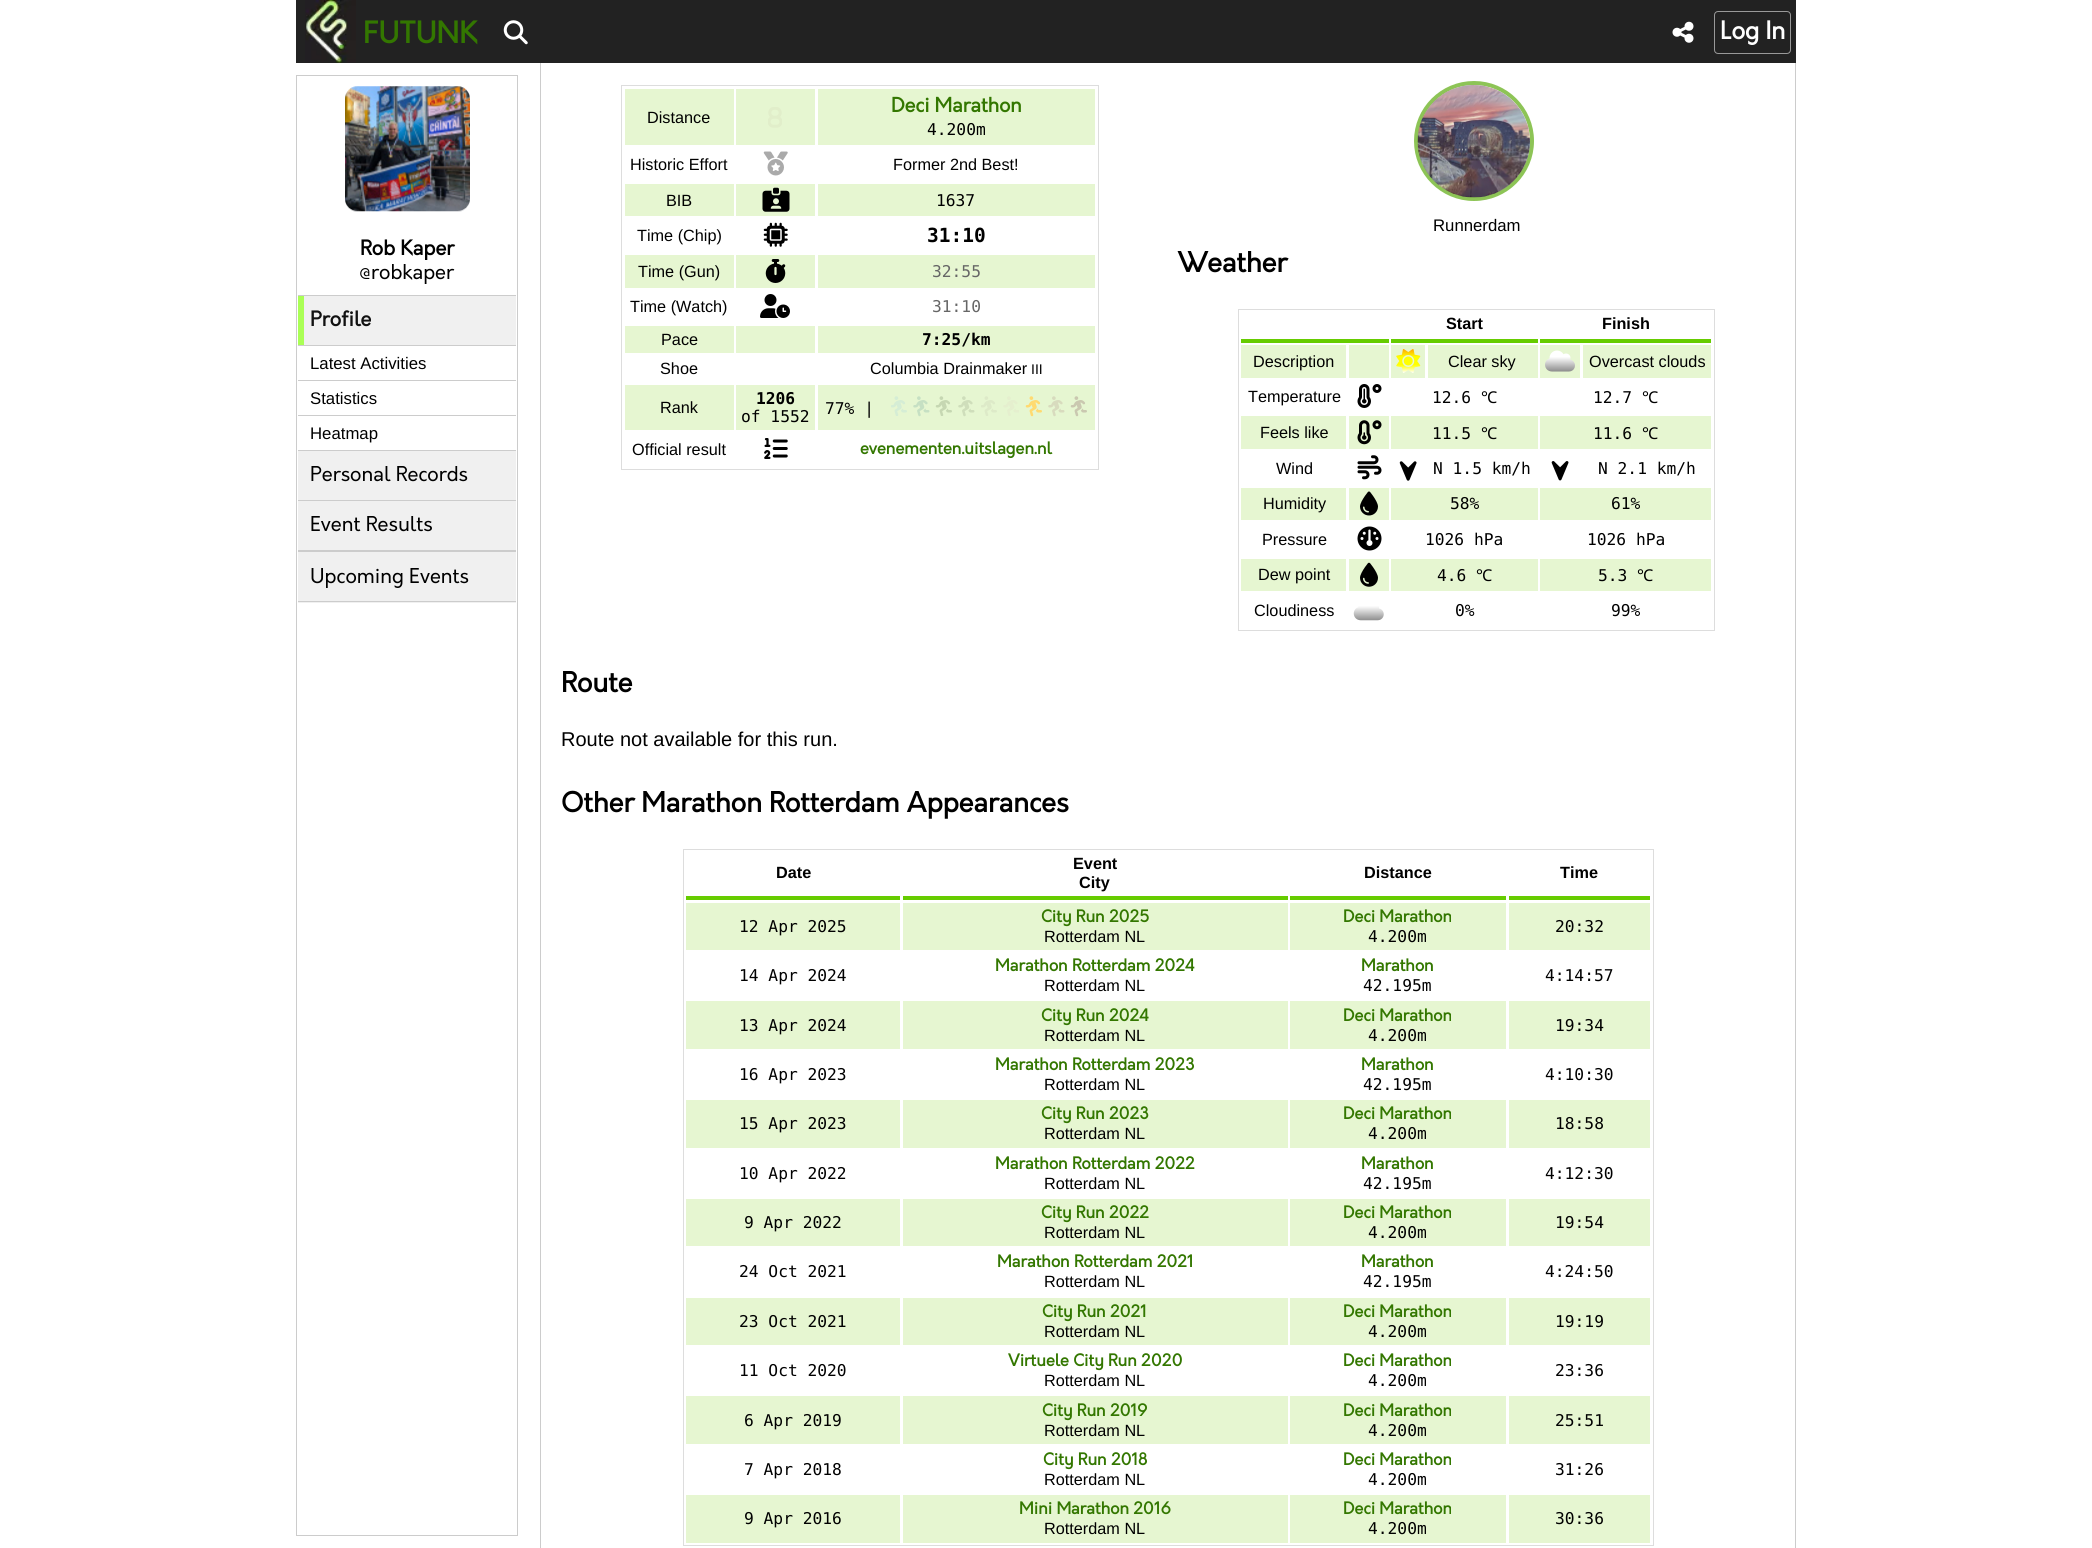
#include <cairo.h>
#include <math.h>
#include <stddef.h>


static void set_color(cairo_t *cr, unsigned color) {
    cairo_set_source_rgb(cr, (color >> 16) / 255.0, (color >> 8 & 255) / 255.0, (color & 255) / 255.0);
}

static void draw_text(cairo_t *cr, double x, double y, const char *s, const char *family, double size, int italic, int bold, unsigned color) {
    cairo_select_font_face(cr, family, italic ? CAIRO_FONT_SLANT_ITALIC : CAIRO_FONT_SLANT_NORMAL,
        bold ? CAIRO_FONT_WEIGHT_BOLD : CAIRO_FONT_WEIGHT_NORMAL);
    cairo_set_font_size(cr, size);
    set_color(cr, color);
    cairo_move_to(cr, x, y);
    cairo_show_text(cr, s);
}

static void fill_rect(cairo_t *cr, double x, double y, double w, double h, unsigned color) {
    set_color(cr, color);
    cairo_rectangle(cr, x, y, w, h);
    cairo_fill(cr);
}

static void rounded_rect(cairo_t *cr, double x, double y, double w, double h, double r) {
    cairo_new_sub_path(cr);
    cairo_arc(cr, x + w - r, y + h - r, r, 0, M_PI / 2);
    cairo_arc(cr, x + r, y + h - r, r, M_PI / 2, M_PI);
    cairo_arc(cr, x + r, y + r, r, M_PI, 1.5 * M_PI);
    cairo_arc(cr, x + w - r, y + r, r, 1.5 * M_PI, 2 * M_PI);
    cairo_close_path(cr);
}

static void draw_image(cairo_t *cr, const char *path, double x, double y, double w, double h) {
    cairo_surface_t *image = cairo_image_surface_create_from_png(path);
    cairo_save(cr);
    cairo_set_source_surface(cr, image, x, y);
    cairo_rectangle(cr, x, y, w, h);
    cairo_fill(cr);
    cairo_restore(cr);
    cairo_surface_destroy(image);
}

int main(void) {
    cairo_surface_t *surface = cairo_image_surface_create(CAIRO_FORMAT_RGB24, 2092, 1548);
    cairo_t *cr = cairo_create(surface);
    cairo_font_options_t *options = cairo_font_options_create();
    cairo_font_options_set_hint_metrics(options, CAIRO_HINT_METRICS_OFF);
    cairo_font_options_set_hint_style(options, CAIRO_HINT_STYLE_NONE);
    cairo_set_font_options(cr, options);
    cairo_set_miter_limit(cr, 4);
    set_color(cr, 0xFFFFFF);
    cairo_paint(cr);
    cairo_rectangle(cr, 540.5, -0.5, 1255, 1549);
    set_color(cr, 0xCCCCCC);
    cairo_set_line_width(cr, 1);
    cairo_stroke(cr);
    fill_rect(cr, 296, 0, 1500, 63, 0x222222);
    draw_image(cr, "assets/img1.png", 305, 0, 51, 63);
    draw_text(cr, 363, 43, "FUTUNK", "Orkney", 29, 0, 1, 0x337700);
    draw_image(cr, "assets/img2.png", 503, 20, 25, 25);
    draw_image(cr, "assets/img3.png", 1672, 21, 22, 22);
    rounded_rect(cr, 1714.5, 11.5, 76, 42, 3.5);
    set_color(cr, 0x999999);
    cairo_stroke(cr);
    draw_text(cr, 1720, 39, "Log In", "Orkney", 24, 0, 1, 0xFFFFFF);
    cairo_rectangle(cr, 296.5, 75.5, 221, 1460);
    set_color(cr, 0xCCCCCC);
    cairo_stroke(cr);
    draw_image(cr, "assets/img4.png", 345, 86, 125, 126);
    draw_text(cr, 360, 255, "Rob Kaper", "Orkney", 20, 0, 1, 0x000000);
    draw_text(cr, 359, 279, "@robkaper", "Orkney", 20, 0, 0, 0x000000);
    fill_rect(cr, 304, 296, 212, 49, 0xF0F0F0);
    fill_rect(cr, 298, 295, 218, 1, 0xCCCCCC);
    fill_rect(cr, 298, 345, 218, 1, 0xCCCCCC);
    fill_rect(cr, 298, 296, 6, 49, 0xAAFF55);
    draw_text(cr, 310, 326, "Profile", "Orkney", 20, 0, 1, 0x111111);
    draw_text(cr, 310, 369, "Latest Activities", "Liberation Sans", 16.75, 0, 0, 0x000000);
    fill_rect(cr, 298, 380, 218, 1, 0xCCCCCC);
    draw_text(cr, 310, 404, "Statistics", "Liberation Sans", 16.75, 0, 0, 0x000000);
    fill_rect(cr, 298, 415, 218, 1, 0xCCCCCC);
    draw_text(cr, 310, 439, "Heatmap", "Liberation Sans", 16.75, 0, 0, 0x000000);
    fill_rect(cr, 298, 451, 218, 49, 0xF0F0F0);
    fill_rect(cr, 298, 450, 218, 1, 0xCCCCCC);
    draw_text(cr, 310, 481, "Personal Records", "Orkney", 20, 0, 0, 0x000000);
    fill_rect(cr, 298, 501, 218, 49, 0xF0F0F0);
    fill_rect(cr, 298, 500, 218, 1, 0xCCCCCC);
    fill_rect(cr, 298, 550, 218, 2, 0xCCCCCC);
    draw_text(cr, 310, 531, "Event Results", "Orkney", 20, 0, 0, 0x000000);
    fill_rect(cr, 298, 552, 218, 51, 0xF0F0F0);
    fill_rect(cr, 298, 601, 218, 1, 0xCCCCCC);
    draw_text(cr, 310, 583, "Upcoming Events", "Orkney", 20, 0, 0, 0x000000);
    cairo_rectangle(cr, 621.5, 85.5, 477, 384);
    set_color(cr, 0xDDDDDD);
    cairo_stroke(cr);
    fill_rect(cr, 625, 89, 109, 56, 0xE6F6D1);
    draw_text(cr, 647, 123, "Distance", "Liberation Sans", 16.25, 0, 0, 0x000000);
    fill_rect(cr, 736, 89, 79, 56, 0xE6F6D1);
    draw_image(cr, "assets/img5.png", 768, 107, 14, 21);
    fill_rect(cr, 818, 89, 277, 56, 0xE6F6D1);
    draw_text(cr, 891, 112, "Deci Marathon", "Orkney", 19.5, 0, 1, 0x337700);
    draw_text(cr, 927, 135, "4.200m", "DejaVu Sans Mono", 16.25, 0, 0, 0x000000);
    draw_text(cr, 630, 170, "Historic Effort", "Liberation Sans", 16.25, 0, 0, 0x000000);
    draw_image(cr, "assets/img6.png", 763, 151, 25, 25);
    draw_text(cr, 893, 170, "Former 2nd Best!", "Liberation Sans", 16.25, 0, 0, 0x000000);
    fill_rect(cr, 625, 184, 109, 32, 0xE6F6D1);
    draw_text(cr, 666, 206, "BIB", "Liberation Sans", 16.25, 0, 0, 0x000000);
    fill_rect(cr, 736, 184, 79, 32, 0xE6F6D1);
    draw_image(cr, "assets/img7.png", 762, 187, 28, 25);
    fill_rect(cr, 818, 184, 277, 32, 0xE6F6D1);
    draw_text(cr, 936, 206, "1637", "DejaVu Sans Mono", 16.25, 0, 0, 0x000000);
    draw_text(cr, 637, 241, "Time (Chip)", "Liberation Sans", 16.25, 0, 0, 0x000000);
    draw_image(cr, "assets/img8.png", 763, 222, 25, 25);
    draw_text(cr, 927, 242, "31:10", "DejaVu Sans Mono", 19.5, 0, 1, 0x000000);
    fill_rect(cr, 625, 255, 109, 33, 0xE6F6D1);
    draw_text(cr, 638, 277, "Time (Gun)", "Liberation Sans", 16.25, 0, 0, 0x000000);
    fill_rect(cr, 736, 255, 79, 33, 0xE6F6D1);
    draw_image(cr, "assets/img9.png", 765, 259, 21, 24);
    fill_rect(cr, 818, 255, 277, 33, 0xE6F6D1);
    draw_text(cr, 932, 277, "32:55", "DejaVu Sans Mono", 16.25, 0, 0, 0x666666);
    draw_text(cr, 630, 312, "Time (Watch)", "Liberation Sans", 16.25, 0, 0, 0x000000);
    draw_image(cr, "assets/img10.png", 760, 294, 30, 24);
    draw_text(cr, 932, 312, "31:10", "DejaVu Sans Mono", 16.25, 0, 0, 0x666666);
    fill_rect(cr, 625, 326, 109, 27, 0xE6F6D1);
    draw_text(cr, 661, 345, "Pace", "Liberation Sans", 16.25, 0, 0, 0x000000);
    fill_rect(cr, 736, 326, 79, 27, 0xE6F6D1);
    fill_rect(cr, 818, 326, 277, 27, 0xE6F6D1);
    draw_text(cr, 922, 345, "7:25/km", "DejaVu Sans Mono", 16.25, 0, 1, 0x000000);
    draw_text(cr, 660, 374, "Shoe", "Liberation Sans", 16.25, 0, 0, 0x000000);
    draw_text(cr, 870, 374, "Columbia Drainmaker", "Liberation Sans", 16.25, 0, 0, 0x000000);
    draw_text(cr, 1031, 374, "III", "Liberation Sans", 14, 0, 0, 0x000000);
    fill_rect(cr, 625, 385, 109, 45, 0xE6F6D1);
    draw_text(cr, 660, 413, "Rank", "Liberation Sans", 16.25, 0, 0, 0x000000);
    fill_rect(cr, 736, 385, 79, 45, 0xE6F6D1);
    draw_text(cr, 756, 404, "1206", "DejaVu Sans Mono", 16.25, 0, 1, 0x000000);
    draw_text(cr, 741, 422, "of 1552", "DejaVu Sans Mono", 16.25, 0, 0, 0x000000);
    fill_rect(cr, 818, 385, 277, 45, 0xE6F6D1);
    draw_text(cr, 825, 414, "77% |", "DejaVu Sans Mono", 16.25, 0, 0, 0x000000);
    draw_image(cr, "assets/img11.png", 891, 396, 16, 20);
    draw_image(cr, "assets/img12.png", 913, 396, 17, 21);
    draw_image(cr, "assets/img13.png", 935, 396, 17, 20);
    draw_image(cr, "assets/img14.png", 958, 396, 17, 21);
    draw_image(cr, "assets/img15.png", 981, 396, 16, 20);
    draw_image(cr, "assets/img16.png", 1003, 396, 16, 20);
    draw_image(cr, "assets/img17.png", 1025, 396, 17, 21);
    draw_image(cr, "assets/img18.png", 1048, 396, 17, 21);
    draw_image(cr, "assets/img19.png", 1070, 396, 17, 21);
    draw_text(cr, 632, 455, "Official result", "Liberation Sans", 16.25, 0, 0, 0x000000);
    draw_image(cr, "assets/img20.png", 764, 438, 24, 21);
    draw_text(cr, 860, 454, "evenementen.uitslagen.nl", "Orkney", 16.25, 0, 1, 0x337700);
    cairo_new_path(cr);
    cairo_arc(cr, 1474, 141, 58, 0, 2 * M_PI);
    set_color(cr, 0x8DC456);
    cairo_set_line_width(cr, 4);
    cairo_stroke(cr);
    draw_image(cr, "assets/img21.png", 1417, 85, 113, 113);
    draw_text(cr, 1433, 231, "Runnerdam", "Liberation Sans", 16.75, 0, 0, 0x000000);
    draw_text(cr, 1178, 272, "Weather", "Orkney", 27, 0, 1, 0x000000);
    cairo_rectangle(cr, 1238.5, 309.5, 476, 321);
    set_color(cr, 0xDDDDDD);
    cairo_set_line_width(cr, 1);
    cairo_stroke(cr);
    fill_rect(cr, 1391, 339, 147, 4, 0x66CC00);
    draw_text(cr, 1446, 329, "Start", "Liberation Sans", 16.25, 0, 1, 0x000000);
    fill_rect(cr, 1540, 339, 171, 4, 0x66CC00);
    draw_text(cr, 1602, 329, "Finish", "Liberation Sans", 16.25, 0, 1, 0x000000);
    fill_rect(cr, 1241, 339, 148, 4, 0x66CC00);
    fill_rect(cr, 1241, 345, 105, 33, 0xE6F6D1);
    draw_text(cr, 1253, 367, "Description", "Liberation Sans", 16.25, 0, 0, 0x000000);
    fill_rect(cr, 1349, 345, 40, 33, 0xE6F6D1);
    fill_rect(cr, 1391, 345, 34, 33, 0xE6F6D1);
    draw_image(cr, "assets/img22.png", 1396, 349, 25, 24);
    fill_rect(cr, 1428, 345, 110, 33, 0xE6F6D1);
    draw_text(cr, 1448, 367, "Clear sky", "Liberation Sans", 16.25, 0, 0, 0x000000);
    fill_rect(cr, 1540, 345, 40, 33, 0xE6F6D1);
    draw_image(cr, "assets/img23.png", 1545, 350, 30, 22);
    fill_rect(cr, 1583, 345, 128, 33, 0xE6F6D1);
    draw_text(cr, 1589, 367, "Overcast clouds", "Liberation Sans", 16.25, 0, 0, 0x000000);
    draw_text(cr, 1248, 402, "Temperature", "Liberation Sans", 16.25, 0, 0, 0x000000);
    draw_image(cr, "assets/img24.png", 1357, 384, 25, 24);
    draw_text(cr, 1432, 403, "12.6", "DejaVu Sans Mono", 16.25, 0, 0, 0x000000);
    draw_text(cr, 1481, 403, "℃", "Noto Sans", 16.25, 0, 0, 0x000000);
    draw_text(cr, 1593, 403, "12.7", "DejaVu Sans Mono", 16.25, 0, 0, 0x000000);
    draw_text(cr, 1642, 403, "℃", "Noto Sans", 16.25, 0, 0, 0x000000);
    fill_rect(cr, 1241, 416, 105, 33, 0xE6F6D1);
    draw_text(cr, 1260, 438, "Feels like", "Liberation Sans", 16.25, 0, 0, 0x000000);
    fill_rect(cr, 1349, 416, 40, 33, 0xE6F6D1);
    draw_image(cr, "assets/img25.png", 1357, 420, 25, 25);
    fill_rect(cr, 1391, 416, 147, 33, 0xE6F6D1);
    draw_text(cr, 1432, 439, "11.5", "DejaVu Sans Mono", 16.25, 0, 0, 0x000000);
    draw_text(cr, 1481, 439, "℃", "Noto Sans", 16.25, 0, 0, 0x000000);
    fill_rect(cr, 1540, 416, 171, 33, 0xE6F6D1);
    draw_text(cr, 1593, 439, "11.6", "DejaVu Sans Mono", 16.25, 0, 0, 0x000000);
    draw_text(cr, 1642, 439, "℃", "Noto Sans", 16.25, 0, 0, 0x000000);
    draw_text(cr, 1276, 474, "Wind", "Liberation Sans", 16.25, 0, 0, 0x000000);
    draw_image(cr, "assets/img26.png", 1357, 455, 25, 25);
    draw_image(cr, "assets/img27.png", 1399, 461, 18, 20);
    draw_text(cr, 1433, 474, "N 1.5 km/h", "DejaVu Sans Mono", 16.25, 0, 0, 0x000000);
    draw_image(cr, "assets/img28.png", 1551, 461, 18, 20);
    draw_text(cr, 1598, 474, "N 2.1 km/h", "DejaVu Sans Mono", 16.25, 0, 0, 0x000000);
    fill_rect(cr, 1241, 488, 105, 32, 0xE6F6D1);
    draw_text(cr, 1263, 509, "Humidity", "Liberation Sans", 16.25, 0, 0, 0x000000);
    fill_rect(cr, 1349, 488, 40, 32, 0xE6F6D1);
    draw_image(cr, "assets/img29.png", 1360, 491, 18, 25);
    fill_rect(cr, 1391, 488, 147, 32, 0xE6F6D1);
    draw_text(cr, 1450, 509, "58%", "DejaVu Sans Mono", 16.25, 0, 0, 0x000000);
    fill_rect(cr, 1540, 488, 171, 32, 0xE6F6D1);
    draw_text(cr, 1611, 509, "61%", "DejaVu Sans Mono", 16.25, 0, 0, 0x000000);
    draw_text(cr, 1262, 545, "Pressure", "Liberation Sans", 16.25, 0, 0, 0x000000);
    draw_image(cr, "assets/img30.png", 1357, 526, 25, 25);
    draw_text(cr, 1425, 545, "1026 hPa", "DejaVu Sans Mono", 16.25, 0, 0, 0x000000);
    draw_text(cr, 1587, 545, "1026 hPa", "DejaVu Sans Mono", 16.25, 0, 0, 0x000000);
    fill_rect(cr, 1241, 559, 105, 32, 0xE6F6D1);
    draw_text(cr, 1258, 580, "Dew point", "Liberation Sans", 16.25, 0, 0, 0x000000);
    fill_rect(cr, 1349, 559, 40, 32, 0xE6F6D1);
    draw_image(cr, "assets/img31.png", 1360, 562, 18, 25);
    fill_rect(cr, 1391, 559, 147, 32, 0xE6F6D1);
    draw_text(cr, 1437, 581, "4.6", "DejaVu Sans Mono", 16.25, 0, 0, 0x000000);
    draw_text(cr, 1476, 581, "℃", "Noto Sans", 16.25, 0, 0, 0x000000);
    fill_rect(cr, 1540, 559, 171, 32, 0xE6F6D1);
    draw_text(cr, 1598, 581, "5.3", "DejaVu Sans Mono", 16.25, 0, 0, 0x000000);
    draw_text(cr, 1637, 581, "℃", "Noto Sans", 16.25, 0, 0, 0x000000);
    draw_text(cr, 1254, 616, "Cloudiness", "Liberation Sans", 16.25, 0, 0, 0x000000);
    draw_image(cr, "assets/img32.png", 1353, 606, 31, 15);
    draw_text(cr, 1455, 616, "0%", "DejaVu Sans Mono", 16.25, 0, 0, 0x000000);
    draw_text(cr, 1611, 616, "99%", "DejaVu Sans Mono", 16.25, 0, 0, 0x000000);
    draw_text(cr, 561, 692, "Route", "Orkney", 27, 0, 1, 0x000000);
    draw_text(cr, 561, 746, "Route not available for this run.", "Liberation Sans", 20, 0, 0, 0x000000);
    draw_text(cr, 561, 812, "Other Marathon Rotterdam Appearances", "Orkney", 27, 0, 1, 0x000000);
    cairo_rectangle(cr, 683.5, 849.5, 970, 696);
    set_color(cr, 0xDDDDDD);
    cairo_stroke(cr);
    fill_rect(cr, 686, 896, 214, 4, 0x66CC00);
    draw_text(cr, 776, 878, "Date", "Liberation Sans", 16.25, 0, 1, 0x000000);
    fill_rect(cr, 903, 896, 385, 4, 0x66CC00);
    draw_text(cr, 1073, 869, "Event", "Liberation Sans", 16.25, 0, 1, 0x000000);
    draw_text(cr, 1079, 888, "City", "Liberation Sans", 16.25, 0, 1, 0x000000);
    fill_rect(cr, 1290, 896, 216, 4, 0x66CC00);
    draw_text(cr, 1364, 878, "Distance", "Liberation Sans", 16.25, 0, 1, 0x000000);
    fill_rect(cr, 1509, 896, 141, 4, 0x66CC00);
    draw_text(cr, 1560, 878, "Time", "Liberation Sans", 16.25, 0, 1, 0x000000);
    fill_rect(cr, 686, 903, 214, 47, 0xE6F6D1);
    draw_text(cr, 739, 932, "12 Apr 2025", "DejaVu Sans Mono", 16.25, 0, 0, 0x000000);
    fill_rect(cr, 903, 903, 385, 47, 0xE6F6D1);
    draw_text(cr, 1041, 922, "City Run 2025", "Orkney", 16.25, 0, 1, 0x337700);
    draw_text(cr, 1044, 942, "Rotterdam NL", "Liberation Sans", 16.25, 0, 0, 0x000000);
    fill_rect(cr, 1290, 903, 216, 47, 0xE6F6D1);
    draw_text(cr, 1343, 922, "Deci Marathon", "Orkney", 16.25, 0, 1, 0x337700);
    draw_text(cr, 1368, 942, "4.200m", "DejaVu Sans Mono", 16.25, 0, 0, 0x000000);
    fill_rect(cr, 1509, 903, 141, 47, 0xE6F6D1);
    draw_text(cr, 1555, 932, "20:32", "DejaVu Sans Mono", 16.25, 0, 0, 0x000000);
    draw_text(cr, 739, 981, "14 Apr 2024", "DejaVu Sans Mono", 16.25, 0, 0, 0x000000);
    draw_text(cr, 995, 971, "Marathon Rotterdam 2024", "Orkney", 16.25, 0, 1, 0x337700);
    draw_text(cr, 1044, 991, "Rotterdam NL", "Liberation Sans", 16.25, 0, 0, 0x000000);
    draw_text(cr, 1361, 971, "Marathon", "Orkney", 16.25, 0, 1, 0x337700);
    draw_text(cr, 1363, 991, "42.195m", "DejaVu Sans Mono", 16.25, 0, 0, 0x000000);
    draw_text(cr, 1545, 981, "4:14:57", "DejaVu Sans Mono", 16.25, 0, 0, 0x000000);
    fill_rect(cr, 686, 1001, 214, 48, 0xE6F6D1);
    draw_text(cr, 739, 1031, "13 Apr 2024", "DejaVu Sans Mono", 16.25, 0, 0, 0x000000);
    fill_rect(cr, 903, 1001, 385, 48, 0xE6F6D1);
    draw_text(cr, 1041, 1021, "City Run 2024", "Orkney", 16.25, 0, 1, 0x337700);
    draw_text(cr, 1044, 1041, "Rotterdam NL", "Liberation Sans", 16.25, 0, 0, 0x000000);
    fill_rect(cr, 1290, 1001, 216, 48, 0xE6F6D1);
    draw_text(cr, 1343, 1021, "Deci Marathon", "Orkney", 16.25, 0, 1, 0x337700);
    draw_text(cr, 1368, 1041, "4.200m", "DejaVu Sans Mono", 16.25, 0, 0, 0x000000);
    fill_rect(cr, 1509, 1001, 141, 48, 0xE6F6D1);
    draw_text(cr, 1555, 1031, "19:34", "DejaVu Sans Mono", 16.25, 0, 0, 0x000000);
    draw_text(cr, 739, 1080, "16 Apr 2023", "DejaVu Sans Mono", 16.25, 0, 0, 0x000000);
    draw_text(cr, 995, 1070, "Marathon Rotterdam 2023", "Orkney", 16.25, 0, 1, 0x337700);
    draw_text(cr, 1044, 1090, "Rotterdam NL", "Liberation Sans", 16.25, 0, 0, 0x000000);
    draw_text(cr, 1361, 1070, "Marathon", "Orkney", 16.25, 0, 1, 0x337700);
    draw_text(cr, 1363, 1090, "42.195m", "DejaVu Sans Mono", 16.25, 0, 0, 0x000000);
    draw_text(cr, 1545, 1080, "4:10:30", "DejaVu Sans Mono", 16.25, 0, 0, 0x000000);
    fill_rect(cr, 686, 1100, 214, 48, 0xE6F6D1);
    draw_text(cr, 739, 1129, "15 Apr 2023", "DejaVu Sans Mono", 16.25, 0, 0, 0x000000);
    fill_rect(cr, 903, 1100, 385, 48, 0xE6F6D1);
    draw_text(cr, 1041, 1119, "City Run 2023", "Orkney", 16.25, 0, 1, 0x337700);
    draw_text(cr, 1044, 1139, "Rotterdam NL", "Liberation Sans", 16.25, 0, 0, 0x000000);
    fill_rect(cr, 1290, 1100, 216, 48, 0xE6F6D1);
    draw_text(cr, 1343, 1119, "Deci Marathon", "Orkney", 16.25, 0, 1, 0x337700);
    draw_text(cr, 1368, 1139, "4.200m", "DejaVu Sans Mono", 16.25, 0, 0, 0x000000);
    fill_rect(cr, 1509, 1100, 141, 48, 0xE6F6D1);
    draw_text(cr, 1555, 1129, "18:58", "DejaVu Sans Mono", 16.25, 0, 0, 0x000000);
    draw_text(cr, 739, 1179, "10 Apr 2022", "DejaVu Sans Mono", 16.25, 0, 0, 0x000000);
    draw_text(cr, 995, 1169, "Marathon Rotterdam 2022", "Orkney", 16.25, 0, 1, 0x337700);
    draw_text(cr, 1044, 1189, "Rotterdam NL", "Liberation Sans", 16.25, 0, 0, 0x000000);
    draw_text(cr, 1361, 1169, "Marathon", "Orkney", 16.25, 0, 1, 0x337700);
    draw_text(cr, 1363, 1189, "42.195m", "DejaVu Sans Mono", 16.25, 0, 0, 0x000000);
    draw_text(cr, 1545, 1179, "4:12:30", "DejaVu Sans Mono", 16.25, 0, 0, 0x000000);
    fill_rect(cr, 686, 1199, 214, 47, 0xE6F6D1);
    draw_text(cr, 744, 1228, "9 Apr 2022", "DejaVu Sans Mono", 16.25, 0, 0, 0x000000);
    fill_rect(cr, 903, 1199, 385, 47, 0xE6F6D1);
    draw_text(cr, 1041, 1218, "City Run 2022", "Orkney", 16.25, 0, 1, 0x337700);
    draw_text(cr, 1044, 1238, "Rotterdam NL", "Liberation Sans", 16.25, 0, 0, 0x000000);
    fill_rect(cr, 1290, 1199, 216, 47, 0xE6F6D1);
    draw_text(cr, 1343, 1218, "Deci Marathon", "Orkney", 16.25, 0, 1, 0x337700);
    draw_text(cr, 1368, 1238, "4.200m", "DejaVu Sans Mono", 16.25, 0, 0, 0x000000);
    fill_rect(cr, 1509, 1199, 141, 47, 0xE6F6D1);
    draw_text(cr, 1555, 1228, "19:54", "DejaVu Sans Mono", 16.25, 0, 0, 0x000000);
    draw_text(cr, 739, 1277, "24 Oct 2021", "DejaVu Sans Mono", 16.25, 0, 0, 0x000000);
    draw_text(cr, 997, 1267, "Marathon Rotterdam 2021", "Orkney", 16.25, 0, 1, 0x337700);
    draw_text(cr, 1044, 1287, "Rotterdam NL", "Liberation Sans", 16.25, 0, 0, 0x000000);
    draw_text(cr, 1361, 1267, "Marathon", "Orkney", 16.25, 0, 1, 0x337700);
    draw_text(cr, 1363, 1287, "42.195m", "DejaVu Sans Mono", 16.25, 0, 0, 0x000000);
    draw_text(cr, 1545, 1277, "4:24:50", "DejaVu Sans Mono", 16.25, 0, 0, 0x000000);
    fill_rect(cr, 686, 1298, 214, 47, 0xE6F6D1);
    draw_text(cr, 739, 1327, "23 Oct 2021", "DejaVu Sans Mono", 16.25, 0, 0, 0x000000);
    fill_rect(cr, 903, 1298, 385, 47, 0xE6F6D1);
    draw_text(cr, 1042, 1317, "City Run 2021", "Orkney", 16.25, 0, 1, 0x337700);
    draw_text(cr, 1044, 1337, "Rotterdam NL", "Liberation Sans", 16.25, 0, 0, 0x000000);
    fill_rect(cr, 1290, 1298, 216, 47, 0xE6F6D1);
    draw_text(cr, 1343, 1317, "Deci Marathon", "Orkney", 16.25, 0, 1, 0x337700);
    draw_text(cr, 1368, 1337, "4.200m", "DejaVu Sans Mono", 16.25, 0, 0, 0x000000);
    fill_rect(cr, 1509, 1298, 141, 47, 0xE6F6D1);
    draw_text(cr, 1555, 1327, "19:19", "DejaVu Sans Mono", 16.25, 0, 0, 0x000000);
    draw_text(cr, 739, 1376, "11 Oct 2020", "DejaVu Sans Mono", 16.25, 0, 0, 0x000000);
    draw_text(cr, 1008, 1366, "Virtuele City Run 2020", "Orkney", 16.25, 0, 1, 0x337700);
    draw_text(cr, 1044, 1386, "Rotterdam NL", "Liberation Sans", 16.25, 0, 0, 0x000000);
    draw_text(cr, 1343, 1366, "Deci Marathon", "Orkney", 16.25, 0, 1, 0x337700);
    draw_text(cr, 1368, 1386, "4.200m", "DejaVu Sans Mono", 16.25, 0, 0, 0x000000);
    draw_text(cr, 1555, 1376, "23:36", "DejaVu Sans Mono", 16.25, 0, 0, 0x000000);
    fill_rect(cr, 686, 1396, 214, 48, 0xE6F6D1);
    draw_text(cr, 744, 1426, "6 Apr 2019", "DejaVu Sans Mono", 16.25, 0, 0, 0x000000);
    fill_rect(cr, 903, 1396, 385, 48, 0xE6F6D1);
    draw_text(cr, 1042, 1416, "City Run 2019", "Orkney", 16.25, 0, 1, 0x337700);
    draw_text(cr, 1044, 1436, "Rotterdam NL", "Liberation Sans", 16.25, 0, 0, 0x000000);
    fill_rect(cr, 1290, 1396, 216, 48, 0xE6F6D1);
    draw_text(cr, 1343, 1416, "Deci Marathon", "Orkney", 16.25, 0, 1, 0x337700);
    draw_text(cr, 1368, 1436, "4.200m", "DejaVu Sans Mono", 16.25, 0, 0, 0x000000);
    fill_rect(cr, 1509, 1396, 141, 48, 0xE6F6D1);
    draw_text(cr, 1555, 1426, "25:51", "DejaVu Sans Mono", 16.25, 0, 0, 0x000000);
    draw_text(cr, 744, 1475, "7 Apr 2018", "DejaVu Sans Mono", 16.25, 0, 0, 0x000000);
    draw_text(cr, 1043, 1465, "City Run 2018", "Orkney", 16.25, 0, 1, 0x337700);
    draw_text(cr, 1044, 1485, "Rotterdam NL", "Liberation Sans", 16.25, 0, 0, 0x000000);
    draw_text(cr, 1343, 1465, "Deci Marathon", "Orkney", 16.25, 0, 1, 0x337700);
    draw_text(cr, 1368, 1485, "4.200m", "DejaVu Sans Mono", 16.25, 0, 0, 0x000000);
    draw_text(cr, 1555, 1475, "31:26", "DejaVu Sans Mono", 16.25, 0, 0, 0x000000);
    fill_rect(cr, 686, 1495, 214, 48, 0xE6F6D1);
    draw_text(cr, 744, 1524, "9 Apr 2016", "DejaVu Sans Mono", 16.25, 0, 0, 0x000000);
    fill_rect(cr, 903, 1495, 385, 48, 0xE6F6D1);
    draw_text(cr, 1019, 1514, "Mini Marathon 2016", "Orkney", 16.25, 0, 1, 0x337700);
    draw_text(cr, 1044, 1534, "Rotterdam NL", "Liberation Sans", 16.25, 0, 0, 0x000000);
    fill_rect(cr, 1290, 1495, 216, 48, 0xE6F6D1);
    draw_text(cr, 1343, 1514, "Deci Marathon", "Orkney", 16.25, 0, 1, 0x337700);
    draw_text(cr, 1368, 1534, "4.200m", "DejaVu Sans Mono", 16.25, 0, 0, 0x000000);
    fill_rect(cr, 1509, 1495, 141, 48, 0xE6F6D1);
    draw_text(cr, 1555, 1524, "30:36", "DejaVu Sans Mono", 16.25, 0, 0, 0x000000);
    cairo_surface_write_to_png(surface, "output.png");
    cairo_font_options_destroy(options);
    cairo_destroy(cr);
    cairo_surface_destroy(surface);
    return 0;
}
